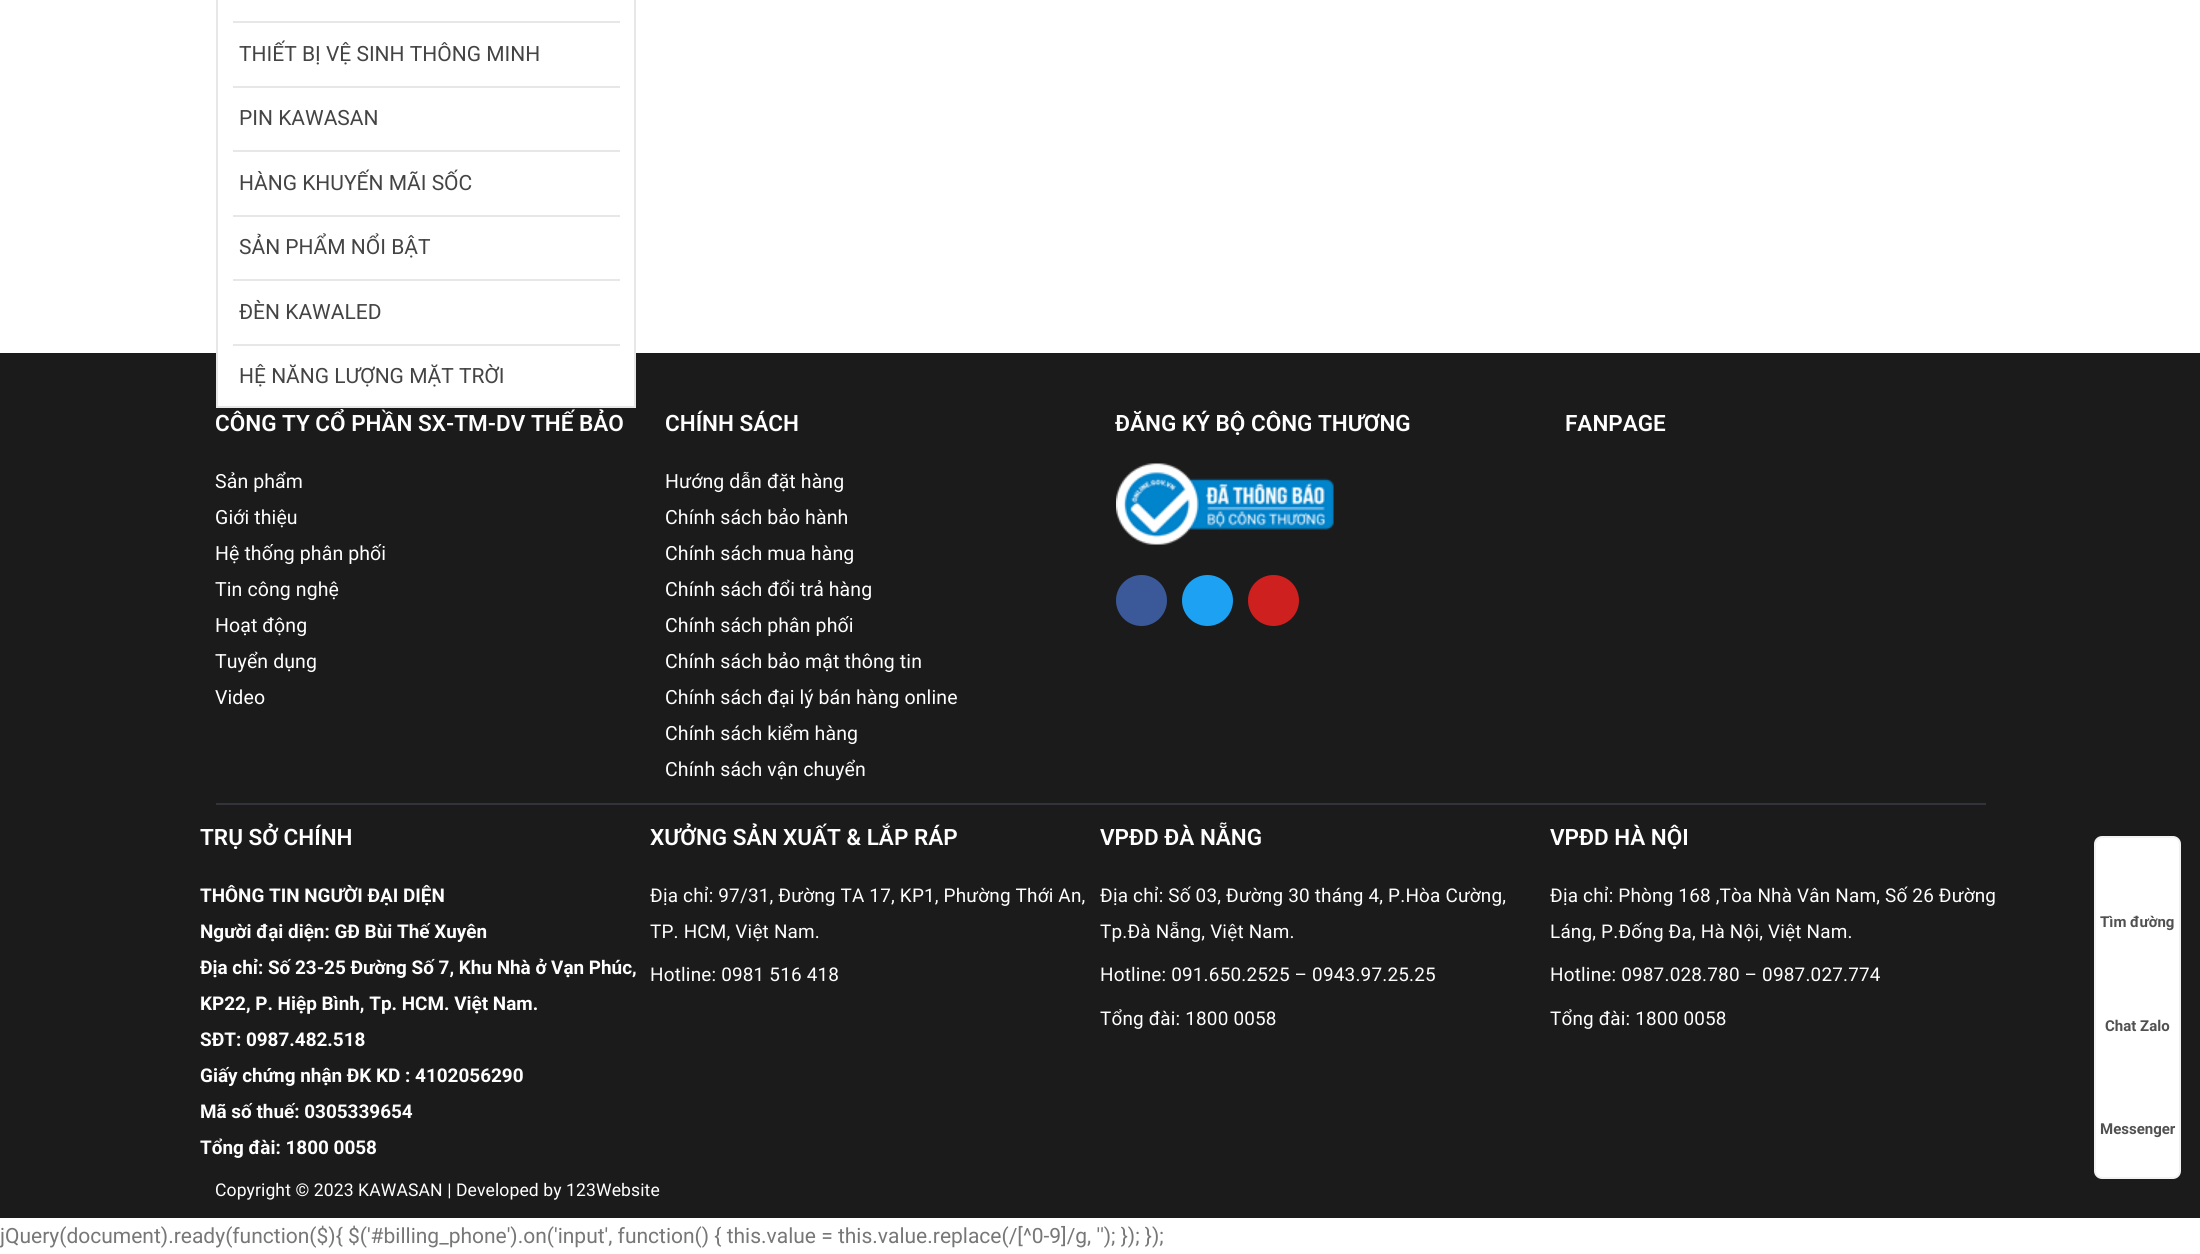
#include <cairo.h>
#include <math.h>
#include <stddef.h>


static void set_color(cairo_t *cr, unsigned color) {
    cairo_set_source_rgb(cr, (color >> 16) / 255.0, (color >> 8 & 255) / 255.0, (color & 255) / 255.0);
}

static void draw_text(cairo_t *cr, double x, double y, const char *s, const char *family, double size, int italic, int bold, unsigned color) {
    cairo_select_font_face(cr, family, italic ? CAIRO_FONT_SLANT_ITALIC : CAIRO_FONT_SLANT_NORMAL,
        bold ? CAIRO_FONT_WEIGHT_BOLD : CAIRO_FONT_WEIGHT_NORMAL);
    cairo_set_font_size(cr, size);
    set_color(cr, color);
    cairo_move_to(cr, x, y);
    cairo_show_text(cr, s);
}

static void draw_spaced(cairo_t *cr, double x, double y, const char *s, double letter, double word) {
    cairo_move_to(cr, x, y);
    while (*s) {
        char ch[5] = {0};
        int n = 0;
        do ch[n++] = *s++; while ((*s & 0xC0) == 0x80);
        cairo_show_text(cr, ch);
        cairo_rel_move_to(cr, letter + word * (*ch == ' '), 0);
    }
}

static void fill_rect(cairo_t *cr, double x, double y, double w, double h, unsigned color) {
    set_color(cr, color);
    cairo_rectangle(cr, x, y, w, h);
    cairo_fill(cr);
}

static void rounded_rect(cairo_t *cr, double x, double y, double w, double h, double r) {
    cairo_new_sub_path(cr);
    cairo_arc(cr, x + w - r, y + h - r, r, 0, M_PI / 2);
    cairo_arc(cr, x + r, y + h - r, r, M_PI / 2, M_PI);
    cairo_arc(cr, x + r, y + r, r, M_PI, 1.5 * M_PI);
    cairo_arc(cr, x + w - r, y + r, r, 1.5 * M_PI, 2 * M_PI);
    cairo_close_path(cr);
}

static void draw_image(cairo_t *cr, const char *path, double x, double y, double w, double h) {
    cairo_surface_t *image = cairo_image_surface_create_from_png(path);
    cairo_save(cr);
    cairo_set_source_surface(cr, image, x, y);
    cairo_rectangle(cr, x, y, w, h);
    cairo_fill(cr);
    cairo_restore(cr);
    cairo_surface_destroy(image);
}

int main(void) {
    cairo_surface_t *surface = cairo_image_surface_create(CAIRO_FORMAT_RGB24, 2200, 1254);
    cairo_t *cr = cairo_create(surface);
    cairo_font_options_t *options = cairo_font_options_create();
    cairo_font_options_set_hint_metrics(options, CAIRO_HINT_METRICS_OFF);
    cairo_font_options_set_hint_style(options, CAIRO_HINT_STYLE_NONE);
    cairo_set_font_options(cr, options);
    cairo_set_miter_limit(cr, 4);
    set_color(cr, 0xFFFFFF);
    cairo_paint(cr);
    fill_rect(cr, 0, 353, 2200, 865, 0x1B1B1B);
    fill_rect(cr, 218, 353, 416, 53, 0xFFFFFF);
    cairo_rectangle(cr, 217, -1, 418, 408);
    set_color(cr, 0xE7E7E7);
    cairo_stroke(cr);
    fill_rect(cr, 233, 21, 387, 2, 0xE7E7E7);
    draw_text(cr, 239, 61, "THIẾT BỊ VỆ SINH THÔNG MINH", "Roboto", 21, 0, 0, 0x444444);
    fill_rect(cr, 233, 86, 387, 2, 0xE7E7E7);
    draw_text(cr, 239, 125, "PIN KAWASAN", "Roboto", 21, 0, 0, 0x444444);
    fill_rect(cr, 233, 150, 387, 2, 0xE7E7E7);
    draw_text(cr, 239, 190, "HÀNG KHUYẾN MÃI SỐC", "Roboto", 21, 0, 0, 0x444444);
    fill_rect(cr, 233, 215, 387, 2, 0xE7E7E7);
    draw_text(cr, 239, 254, "SẢN PHẨM NỔI BẬT", "Roboto", 21, 0, 0, 0x444444);
    fill_rect(cr, 233, 279, 387, 2, 0xE7E7E7);
    draw_text(cr, 239, 319, "ĐÈN KAWALED", "Roboto", 21, 0, 0, 0x444444);
    fill_rect(cr, 233, 344, 387, 2, 0xE7E7E7);
    draw_text(cr, 239, 383, "HỆ NĂNG LƯỢNG MẶT TRỜI", "Roboto", 21, 0, 0, 0x444444);
    fill_rect(cr, 216, 803, 1770, 2, 0x313438);
    draw_text(cr, 215, 431, "CÔNG TY CỔ PHẦN SX-TM-DV THẾ BẢO", "Roboto SemiBold", 22.5, 0, 0, 0xFFFFFF);
    cairo_select_font_face(cr, "Roboto", CAIRO_FONT_SLANT_NORMAL, CAIRO_FONT_WEIGHT_NORMAL);
    cairo_set_font_size(cr, 19.5);
    draw_spaced(cr, 215, 488, "Sản phẩm", 0.1, 0);
    draw_spaced(cr, 215, 524, "Giới thiệu", 0.1, 0);
    draw_spaced(cr, 215, 560, "Hệ thống phân phối", 0.1, 0);
    draw_spaced(cr, 215, 596, "Tin công nghệ", 0.1, 0);
    draw_spaced(cr, 215, 632, "Hoạt động", 0.1, 0);
    draw_spaced(cr, 215, 668, "Tuyển dụng", 0.1, 0);
    draw_spaced(cr, 215, 704, "Video", 0.1, 0);
    draw_text(cr, 665, 431, "CHÍNH SÁCH", "Roboto SemiBold", 22.5, 0, 0, 0xFFFFFF);
    cairo_select_font_face(cr, "Roboto", CAIRO_FONT_SLANT_NORMAL, CAIRO_FONT_WEIGHT_NORMAL);
    cairo_set_font_size(cr, 19.5);
    draw_spaced(cr, 665, 488, "Hướng dẫn đặt hàng", 0.1, 0);
    draw_spaced(cr, 665, 524, "Chính sách bảo hành", 0.1, 0);
    draw_spaced(cr, 665, 560, "Chính sách mua hàng", 0.1, 0);
    draw_spaced(cr, 665, 596, "Chính sách đổi trả hàng", 0.1, 0);
    draw_spaced(cr, 665, 632, "Chính sách phân phối", 0.1, 0);
    draw_spaced(cr, 665, 668, "Chính sách bảo mật thông tin", 0.1, 0);
    draw_spaced(cr, 665, 704, "Chính sách đại lý bán hàng online", 0.1, 0);
    draw_spaced(cr, 665, 740, "Chính sách kiểm hàng", 0.1, 0);
    draw_spaced(cr, 665, 776, "Chính sách vận chuyển", 0.1, 0);
    draw_text(cr, 1115, 431, "ĐĂNG KÝ BỘ CÔNG THƯƠNG", "Roboto SemiBold", 22.5, 0, 0, 0xFFFFFF);
    draw_image(cr, "assets/img1.png", 1116, 463, 218, 82);
    set_color(cr, 0x3B5998);
    cairo_arc(cr, 1141.5, 600.5, 25.5, 0, 2 * M_PI);
    cairo_fill(cr);
    set_color(cr, 0x1DA1F2);
    cairo_arc(cr, 1207.5, 600.5, 25.5, 0, 2 * M_PI);
    cairo_fill(cr);
    set_color(cr, 0xCD201F);
    cairo_arc(cr, 1273.5, 600.5, 25.5, 0, 2 * M_PI);
    cairo_fill(cr);
    draw_text(cr, 1565, 431, "FANPAGE", "Roboto SemiBold", 22.5, 0, 0, 0xFFFFFF);
    draw_text(cr, 200, 845, "TRỤ SỞ CHÍNH", "Roboto SemiBold", 22.5, 0, 0, 0xFFFFFF);
    draw_text(cr, 200, 902, "THÔNG TIN NGƯỜI ĐẠI DIỆN", "Roboto", 18.9, 0, 1, 0xFFFFFF);
    draw_text(cr, 200, 938, "Người đại diện: GĐ Bùi Thế Xuyên", "Roboto", 18.9, 0, 1, 0xFFFFFF);
    draw_text(cr, 200, 974, "Địa chỉ: Số 23-25 Đường Số 7, Khu Nhà ở Vạn Phúc,", "Roboto", 18.9, 0, 1, 0xFFFFFF);
    draw_text(cr, 200, 1010, "KP22, P. Hiệp Bình, Tp. HCM. Việt Nam.", "Roboto", 18.9, 0, 1, 0xFFFFFF);
    draw_text(cr, 200, 1046, "SĐT: 0987.482.518", "Roboto", 18.9, 0, 1, 0xFFFFFF);
    draw_text(cr, 200, 1082, "Giấy chứng nhận ĐK KD : 4102056290", "Roboto", 18.9, 0, 1, 0xFFFFFF);
    draw_text(cr, 200, 1118, "Mã số thuế: 0305339654", "Roboto", 18.9, 0, 1, 0xFFFFFF);
    draw_text(cr, 200, 1154, "Tổng đài: 1800 0058", "Roboto", 18.9, 0, 1, 0xFFFFFF);
    draw_text(cr, 650, 845, "XƯỞNG SẢN XUẤT & LẮP RÁP", "Roboto SemiBold", 22.5, 0, 0, 0xFFFFFF);
    cairo_select_font_face(cr, "Roboto", CAIRO_FONT_SLANT_NORMAL, CAIRO_FONT_WEIGHT_NORMAL);
    cairo_set_font_size(cr, 18.9);
    draw_spaced(cr, 650, 902, "Địa chỉ: 97/31, Đường TA 17, KP1, Phường Thới An,", 0.2, 0);
    draw_spaced(cr, 650, 938, "TP. HCM, Việt Nam.", 0.2, 0);
    draw_spaced(cr, 650, 981, "Hotline: 0981 516 418", 0.2, 0);
    draw_text(cr, 1100, 845, "VPĐD ĐÀ NẴNG", "Roboto SemiBold", 22.5, 0, 0, 0xFFFFFF);
    cairo_select_font_face(cr, "Roboto", CAIRO_FONT_SLANT_NORMAL, CAIRO_FONT_WEIGHT_NORMAL);
    cairo_set_font_size(cr, 18.9);
    draw_spaced(cr, 1100, 902, "Địa chỉ: Số 03, Đường 30 tháng 4, P.Hòa Cường,", 0.2, 0);
    draw_spaced(cr, 1100, 938, "Tp.Đà Nẵng, Việt Nam.", 0.2, 0);
    draw_spaced(cr, 1100, 981, "Hotline: 091.650.2525 – 0943.97.25.25", 0.2, 0);
    draw_spaced(cr, 1100, 1025, "Tổng đài: 1800 0058", 0.2, 0);
    draw_text(cr, 1550, 845, "VPĐD HÀ NỘI", "Roboto SemiBold", 22.5, 0, 0, 0xFFFFFF);
    cairo_select_font_face(cr, "Roboto", CAIRO_FONT_SLANT_NORMAL, CAIRO_FONT_WEIGHT_NORMAL);
    cairo_set_font_size(cr, 18.9);
    draw_spaced(cr, 1550, 902, "Địa chỉ: Phòng 168 ,Tòa Nhà Vân Nam, Số 26 Đường", 0.2, 0);
    draw_spaced(cr, 1550, 938, "Láng, P.Đống Đa, Hà Nội, Việt Nam.", 0.2, 0);
    draw_spaced(cr, 1550, 981, "Hotline: 0987.028.780 – 0987.027.774", 0.2, 0);
    draw_spaced(cr, 1550, 1025, "Tổng đài: 1800 0058", 0.2, 0);
    cairo_set_font_size(cr, 17.55);
    draw_spaced(cr, 215, 1196, "Copyright © 2023 KAWASAN | Developed by 123Website", 0.1, 0);
    rounded_rect(cr, 2095, 837, 85, 341, 7);
    cairo_fill_preserve(cr);
    set_color(cr, 0xF2F2F2);
    cairo_stroke(cr);
    draw_text(cr, 2100, 927, "Tìm đường", "Roboto", 15, 0, 1, 0x515151);
    draw_text(cr, 2105, 1031, "Chat Zalo", "Roboto", 15, 0, 1, 0x515151);
    draw_text(cr, 2100, 1134, "Messenger", "Roboto", 15, 0, 1, 0x515151);
    draw_text(cr, 0, 1243, "jQuery(document).ready(function($){ $('#billing_phone').on('input', function() { this.value = this.value.replace(/[^0-9]/g, ''); }); });", "Roboto", 21, 0, 0, 0x777777);
    cairo_surface_write_to_png(surface, "output.png");
    cairo_font_options_destroy(options);
    cairo_destroy(cr);
    cairo_surface_destroy(surface);
    return 0;
}
